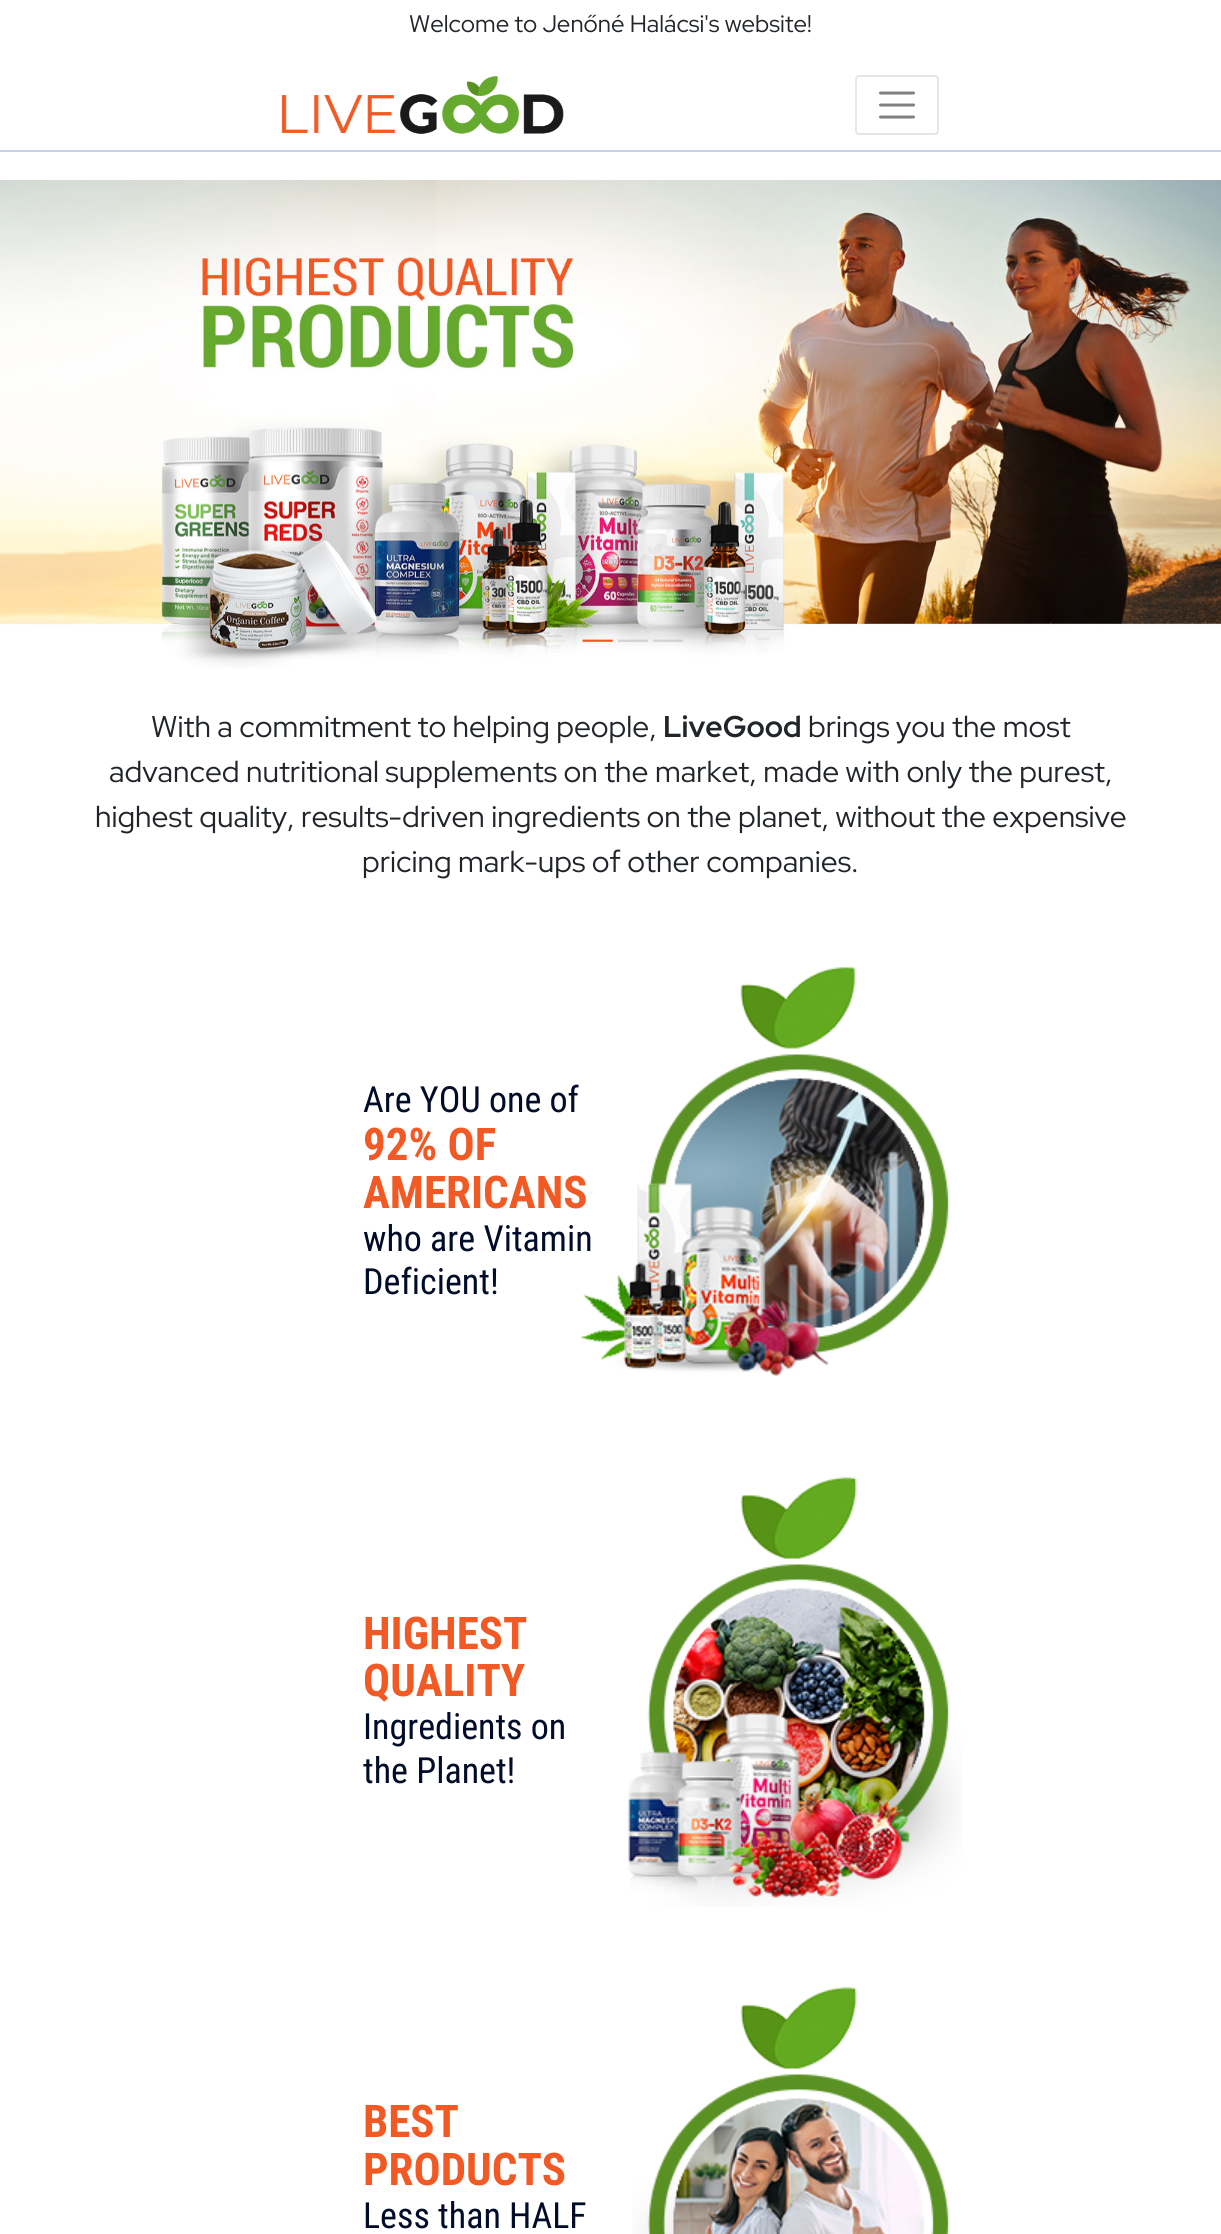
#include <cairo.h>
#include <math.h>
#include <stddef.h>


static void set_color(cairo_t *cr, unsigned color) {
    cairo_set_source_rgb(cr, (color >> 16) / 255.0, (color >> 8 & 255) / 255.0, (color & 255) / 255.0);
}

static void draw_text(cairo_t *cr, double x, double y, const char *s, const char *family, double size, int italic, int bold, unsigned color) {
    cairo_select_font_face(cr, family, italic ? CAIRO_FONT_SLANT_ITALIC : CAIRO_FONT_SLANT_NORMAL,
        bold ? CAIRO_FONT_WEIGHT_BOLD : CAIRO_FONT_WEIGHT_NORMAL);
    cairo_set_font_size(cr, size);
    set_color(cr, color);
    cairo_move_to(cr, x, y);
    cairo_show_text(cr, s);
}

static void fill_rect(cairo_t *cr, double x, double y, double w, double h, unsigned color) {
    set_color(cr, color);
    cairo_rectangle(cr, x, y, w, h);
    cairo_fill(cr);
}

static void rounded_rect(cairo_t *cr, double x, double y, double w, double h, double r) {
    cairo_new_sub_path(cr);
    cairo_arc(cr, x + w - r, y + h - r, r, 0, M_PI / 2);
    cairo_arc(cr, x + r, y + h - r, r, M_PI / 2, M_PI);
    cairo_arc(cr, x + r, y + r, r, M_PI, 1.5 * M_PI);
    cairo_arc(cr, x + w - r, y + r, r, 1.5 * M_PI, 2 * M_PI);
    cairo_close_path(cr);
}

static void draw_image(cairo_t *cr, const char *path, double x, double y, double w, double h) {
    cairo_surface_t *image = cairo_image_surface_create_from_png(path);
    cairo_save(cr);
    cairo_set_source_surface(cr, image, x, y);
    cairo_rectangle(cr, x, y, w, h);
    cairo_fill(cr);
    cairo_restore(cr);
    cairo_surface_destroy(image);
}

int main(void) {
    cairo_surface_t *surface = cairo_image_surface_create(CAIRO_FORMAT_RGB24, 1221, 2234);
    cairo_t *cr = cairo_create(surface);
    cairo_font_options_t *options = cairo_font_options_create();
    cairo_font_options_set_hint_metrics(options, CAIRO_HINT_METRICS_OFF);
    cairo_font_options_set_hint_style(options, CAIRO_HINT_STYLE_NONE);
    cairo_set_font_options(cr, options);
    cairo_set_miter_limit(cr, 4);
    set_color(cr, 0xFFFFFF);
    cairo_paint(cr);
    fill_rect(cr, 0, 150, 1221, 2, 0xC5D3E3);
    draw_text(cr, 409, 32, "Welcome to Jenőné Halácsi's website!", "Red Hat Display", 24, 0, 0, 0x212529);
    draw_image(cr, "assets/img1.png", 281, 76, 283, 58);
    rounded_rect(cr, 856, 76, 82, 58, 3);
    set_color(cr, 0xE6E6E6);
    cairo_stroke(cr);
    cairo_new_path(cr);
    cairo_move_to(cr, 880.5, 93);
    cairo_line_to(cr, 913.5, 93);
    cairo_move_to(cr, 880.5, 105);
    cairo_line_to(cr, 913.5, 105);
    cairo_move_to(cr, 880.5, 117);
    cairo_line_to(cr, 913.5, 117);
    set_color(cr, 0x808080);
    cairo_set_line_width(cr, 3);
    cairo_set_line_cap(cr, CAIRO_LINE_CAP_ROUND);
    cairo_stroke(cr);
    draw_image(cr, "assets/img2.png", 0, 180, 1221, 488);
    draw_text(cr, 151, 737, "With a commitment to helping people,", "Red Hat Display", 30, 0, 0, 0x212529);
    draw_text(cr, 663, 737, "LiveGood", "Red Hat Display", 30, 0, 1, 0x212529);
    draw_text(cr, 808, 737, "brings you the most", "Red Hat Display", 30, 0, 0, 0x212529);
    draw_text(cr, 109, 782, "advanced nutritional supplements on the market, made with only the purest,", "Red Hat Display", 30, 0, 0, 0x212529);
    draw_text(cr, 95, 827, "highest quality, results-driven ingredients on the planet, without the expensive", "Red Hat Display", 30, 0, 0, 0x212529);
    draw_text(cr, 362, 872, "pricing mark-ups of other companies.", "Red Hat Display", 30, 0, 0, 0x212529);
    draw_text(cr, 363, 1112, "Are YOU one of", "Roboto Condensed", 36, 0, 0, 0x000C28);
    draw_text(cr, 363, 1160, "92% OF", "Roboto Condensed", 45, 0, 1, 0xF15A24);
    draw_text(cr, 363, 1208, "AMERICANS", "Roboto Condensed", 45, 0, 1, 0xF15A24);
    draw_text(cr, 363, 1251, "who are Vitamin", "Roboto Condensed", 36, 0, 0, 0x000C28);
    draw_text(cr, 363, 1294, "Deficient!", "Roboto Condensed", 36, 0, 0, 0x000C28);
    draw_image(cr, "assets/img3.png", 580, 967, 369, 409);
    draw_text(cr, 363, 1649, "HIGHEST", "Roboto Condensed", 45, 0, 1, 0xF15A24);
    draw_text(cr, 363, 1696, "QUALITY", "Roboto Condensed", 45, 0, 1, 0xF15A24);
    draw_text(cr, 363, 1739, "Ingredients on", "Roboto Condensed", 36, 0, 0, 0x000C28);
    draw_text(cr, 363, 1783, "the Planet!", "Roboto Condensed", 36, 0, 0, 0x000C28);
    draw_image(cr, "assets/img4.png", 628, 1477, 334, 430);
    draw_text(cr, 363, 2137, "BEST", "Roboto Condensed", 45, 0, 1, 0xF15A24);
    draw_text(cr, 363, 2185, "PRODUCTS", "Roboto Condensed", 45, 0, 1, 0xF15A24);
    draw_text(cr, 363, 2228, "Less than HALF", "Roboto Condensed", 36, 0, 0, 0x000C28);
    draw_image(cr, "assets/img5.png", 632, 1987, 317, 247);
    cairo_surface_write_to_png(surface, "output.png");
    cairo_font_options_destroy(options);
    cairo_destroy(cr);
    cairo_surface_destroy(surface);
    return 0;
}
